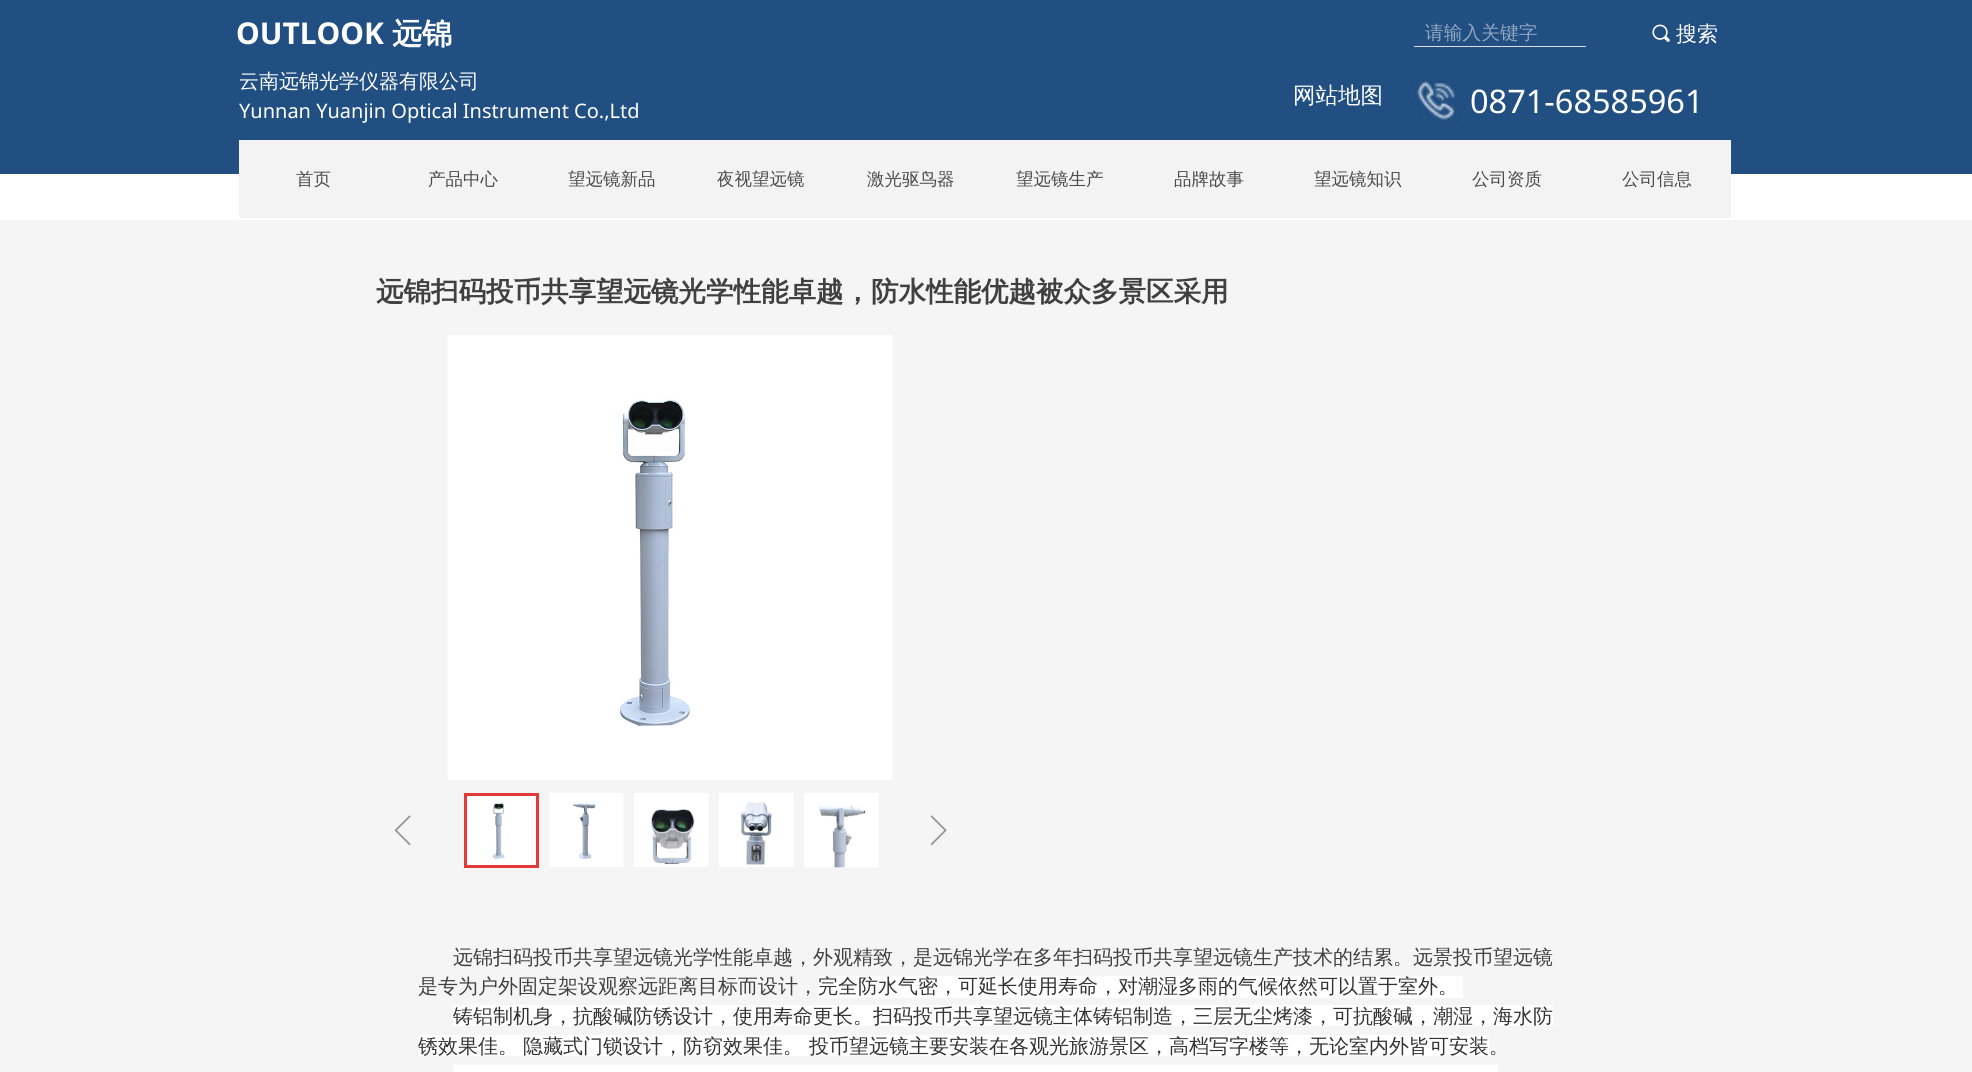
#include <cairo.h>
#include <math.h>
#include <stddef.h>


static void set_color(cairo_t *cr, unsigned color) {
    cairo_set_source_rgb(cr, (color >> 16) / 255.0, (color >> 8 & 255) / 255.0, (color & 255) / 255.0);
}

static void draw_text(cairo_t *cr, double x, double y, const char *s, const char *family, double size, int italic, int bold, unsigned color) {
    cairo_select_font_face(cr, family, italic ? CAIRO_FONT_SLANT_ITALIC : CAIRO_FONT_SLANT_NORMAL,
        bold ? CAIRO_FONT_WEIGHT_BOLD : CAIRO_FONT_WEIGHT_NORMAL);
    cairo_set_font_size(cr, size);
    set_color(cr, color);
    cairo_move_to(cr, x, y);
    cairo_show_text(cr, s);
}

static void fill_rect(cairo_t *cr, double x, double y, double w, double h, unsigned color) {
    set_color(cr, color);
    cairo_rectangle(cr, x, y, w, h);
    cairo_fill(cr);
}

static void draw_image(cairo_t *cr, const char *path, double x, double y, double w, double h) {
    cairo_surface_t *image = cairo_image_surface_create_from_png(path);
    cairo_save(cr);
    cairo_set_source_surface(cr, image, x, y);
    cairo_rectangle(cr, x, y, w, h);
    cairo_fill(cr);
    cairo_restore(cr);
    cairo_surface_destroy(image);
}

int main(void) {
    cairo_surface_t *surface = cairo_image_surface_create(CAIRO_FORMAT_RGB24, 1972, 1072);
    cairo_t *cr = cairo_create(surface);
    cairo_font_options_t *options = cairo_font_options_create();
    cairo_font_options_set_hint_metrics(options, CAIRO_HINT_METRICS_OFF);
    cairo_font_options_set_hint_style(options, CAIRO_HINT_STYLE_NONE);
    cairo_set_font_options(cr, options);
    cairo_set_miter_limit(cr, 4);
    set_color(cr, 0xFFFFFF);
    cairo_paint(cr);
    fill_rect(cr, 0, 0, 1972, 174, 0x214F82);
    draw_text(cr, 236, 44, "OUTLOOK", "Noto Sans", 30, 0, 1, 0xFFFFFF);
    draw_text(cr, 392, 44, "远锦", "WenQuanYi Zen Hei", 30, 0, 1, 0xFFFFFF);
    draw_text(cr, 1425, 39, "请输入关键字", "WenQuanYi Zen Hei Medium", 18.75, 0, 0, 0x90A7C1);
    draw_image(cr, "assets/img1.png", 1652, 24, 18, 18);
    draw_text(cr, 1676, 41, "搜索", "WenQuanYi Zen Hei Medium", 21, 0, 0, 0xFFFFFF);
    fill_rect(cr, 1414, 46, 172, 1, 0xDDDDDD);
    draw_text(cr, 239, 88, "云南远锦光学仪器有限公司", "WenQuanYi Zen Hei Medium", 20, 0, 0, 0xFFFFFF);
    draw_text(cr, 239, 118, "Yunnan Yuanjin Optical Instrument Co.,Ltd", "Noto Sans", 20, 0, 0, 0xFFFFFF);
    draw_text(cr, 1293, 103, "网站地图", "WenQuanYi Zen Hei Medium", 22.5, 0, 0, 0xFFFFFF);
    draw_image(cr, "assets/img2.png", 1407, 72, 53, 54);
    draw_text(cr, 1470, 113, "0871-68585961", "Noto Sans", 32.5, 0, 0, 0xFFFFFF);
    fill_rect(cr, 239, 140, 1492, 78, 0xF3F3F3);
    draw_text(cr, 296, 185, "首页", "WenQuanYi Zen Hei Medium", 17.5, 0, 0, 0x4A4A4A);
    draw_text(cr, 428, 185, "产品中心", "WenQuanYi Zen Hei Medium", 17.5, 0, 0, 0x4A4A4A);
    draw_text(cr, 568, 185, "望远镜新品", "WenQuanYi Zen Hei Medium", 17.5, 0, 0, 0x4A4A4A);
    draw_text(cr, 717, 185, "夜视望远镜", "WenQuanYi Zen Hei Medium", 17.5, 0, 0, 0x4A4A4A);
    draw_text(cr, 867, 185, "激光驱鸟器", "WenQuanYi Zen Hei Medium", 17.5, 0, 0, 0x4A4A4A);
    draw_text(cr, 1016, 185, "望远镜生产", "WenQuanYi Zen Hei Medium", 17.5, 0, 0, 0x4A4A4A);
    draw_text(cr, 1174, 185, "品牌故事", "WenQuanYi Zen Hei Medium", 17.5, 0, 0, 0x4A4A4A);
    draw_text(cr, 1314, 185, "望远镜知识", "WenQuanYi Zen Hei Medium", 17.5, 0, 0, 0x4A4A4A);
    draw_text(cr, 1472, 185, "公司资质", "WenQuanYi Zen Hei Medium", 17.5, 0, 0, 0x4A4A4A);
    draw_text(cr, 1622, 185, "公司信息", "WenQuanYi Zen Hei Medium", 17.5, 0, 0, 0x4A4A4A);
    fill_rect(cr, 0, 220, 1972, 852, 0xF5F5F5);
    draw_text(cr, 376, 301, "远锦扫码投币共享望远镜光学性能卓越，防水性能优越被众多景区采用", "WenQuanYi Zen Hei", 27.5, 0, 1, 0x404040);
    draw_image(cr, "assets/img3.png", 447, 335, 446, 445);
    draw_image(cr, "assets/img4.png", 394, 815, 17, 31);
    draw_image(cr, "assets/img5.png", 467, 796, 69, 69);
    cairo_rectangle(cr, 465.5, 794.5, 72, 72);
    set_color(cr, 0xE43939);
    cairo_set_line_width(cr, 3);
    cairo_stroke(cr);
    draw_image(cr, "assets/img6.png", 549, 793, 75, 74);
    draw_image(cr, "assets/img7.png", 634, 793, 75, 74);
    draw_image(cr, "assets/img8.png", 719, 793, 75, 74);
    draw_image(cr, "assets/img9.png", 804, 793, 75, 75);
    draw_image(cr, "assets/img10.png", 930, 815, 17, 31);
    draw_text(cr, 453, 964, "远锦扫码投币共享望远镜光学性能卓越，外观精致，是远锦光学在多年扫码投币共享望远镜生产技术的结累。远景投币望远镜", "WenQuanYi Zen Hei Medium", 20, 0, 0, 0x404040);
    draw_text(cr, 418, 993, "是专为户外固定架设观察远距离目标而设计，", "WenQuanYi Zen Hei Medium", 20, 0, 0, 0x404040);
    fill_rect(cr, 818, 976, 645, 22, 0xFFFFFF);
    draw_text(cr, 818, 993, "完全防水气密，可延长使用寿命，对潮湿多雨的气候依然可以置于室外。", "WenQuanYi Zen Hei Medium", 20, 0, 0, 0x333333);
    fill_rect(cr, 453, 1005, 1100, 21, 0xFFFFFF);
    draw_text(cr, 453, 1023, "铸铝制机身，抗酸碱防锈设计，使用寿命更长。扫码投币共享望远镜主体铸铝制造，三层无尘烤漆，可抗酸碱，潮湿，海水防", "WenQuanYi Zen Hei Medium", 20, 0, 0, 0x333333);
    fill_rect(cr, 418, 1035, 1071, 21, 0xFFFFFF);
    draw_text(cr, 418, 1053, "锈效果佳。", "WenQuanYi Zen Hei Medium", 20, 0, 0, 0x333333);
    draw_text(cr, 523, 1053, "隐藏式门锁设计，防窃效果佳。", "WenQuanYi Zen Hei Medium", 20, 0, 0, 0x333333);
    draw_text(cr, 809, 1053, "投币望远镜主要安装在各观光旅游景区，高档写字楼等，无论室内外皆可安装", "WenQuanYi Zen Hei Medium", 20, 0, 0, 0x333333);
    draw_text(cr, 1489, 1053, "。", "WenQuanYi Zen Hei Medium", 20, 0, 0, 0x404040);
    fill_rect(cr, 453, 1065, 1045, 7, 0xFFFFFF);
    cairo_surface_write_to_png(surface, "output.png");
    cairo_font_options_destroy(options);
    cairo_destroy(cr);
    cairo_surface_destroy(surface);
    return 0;
}
